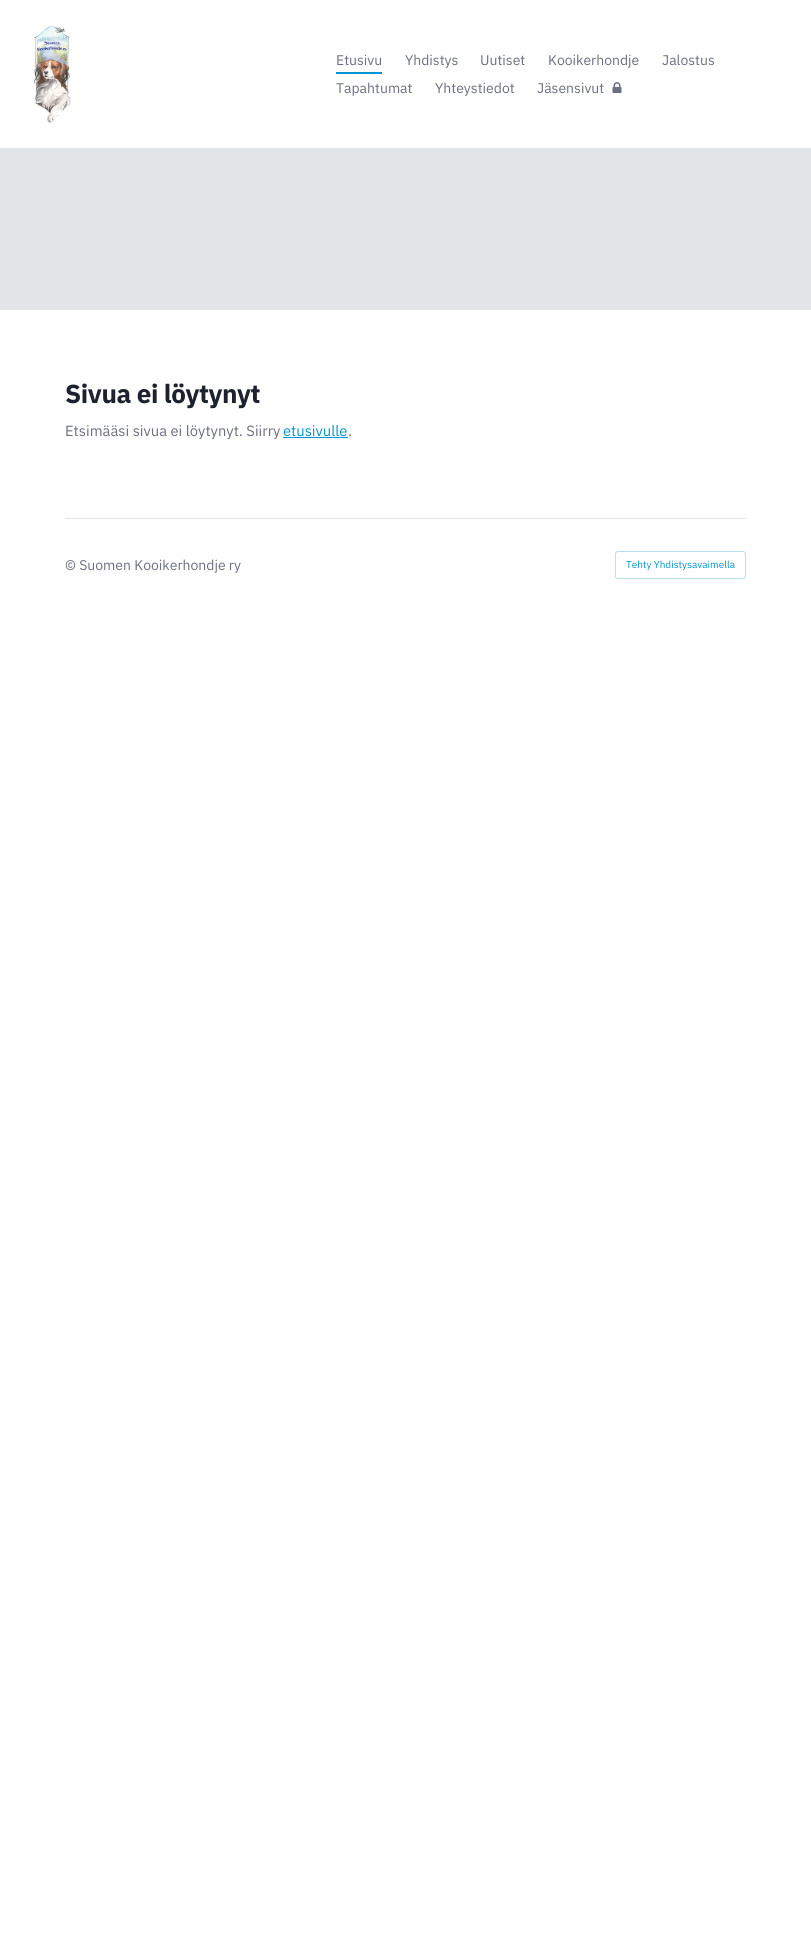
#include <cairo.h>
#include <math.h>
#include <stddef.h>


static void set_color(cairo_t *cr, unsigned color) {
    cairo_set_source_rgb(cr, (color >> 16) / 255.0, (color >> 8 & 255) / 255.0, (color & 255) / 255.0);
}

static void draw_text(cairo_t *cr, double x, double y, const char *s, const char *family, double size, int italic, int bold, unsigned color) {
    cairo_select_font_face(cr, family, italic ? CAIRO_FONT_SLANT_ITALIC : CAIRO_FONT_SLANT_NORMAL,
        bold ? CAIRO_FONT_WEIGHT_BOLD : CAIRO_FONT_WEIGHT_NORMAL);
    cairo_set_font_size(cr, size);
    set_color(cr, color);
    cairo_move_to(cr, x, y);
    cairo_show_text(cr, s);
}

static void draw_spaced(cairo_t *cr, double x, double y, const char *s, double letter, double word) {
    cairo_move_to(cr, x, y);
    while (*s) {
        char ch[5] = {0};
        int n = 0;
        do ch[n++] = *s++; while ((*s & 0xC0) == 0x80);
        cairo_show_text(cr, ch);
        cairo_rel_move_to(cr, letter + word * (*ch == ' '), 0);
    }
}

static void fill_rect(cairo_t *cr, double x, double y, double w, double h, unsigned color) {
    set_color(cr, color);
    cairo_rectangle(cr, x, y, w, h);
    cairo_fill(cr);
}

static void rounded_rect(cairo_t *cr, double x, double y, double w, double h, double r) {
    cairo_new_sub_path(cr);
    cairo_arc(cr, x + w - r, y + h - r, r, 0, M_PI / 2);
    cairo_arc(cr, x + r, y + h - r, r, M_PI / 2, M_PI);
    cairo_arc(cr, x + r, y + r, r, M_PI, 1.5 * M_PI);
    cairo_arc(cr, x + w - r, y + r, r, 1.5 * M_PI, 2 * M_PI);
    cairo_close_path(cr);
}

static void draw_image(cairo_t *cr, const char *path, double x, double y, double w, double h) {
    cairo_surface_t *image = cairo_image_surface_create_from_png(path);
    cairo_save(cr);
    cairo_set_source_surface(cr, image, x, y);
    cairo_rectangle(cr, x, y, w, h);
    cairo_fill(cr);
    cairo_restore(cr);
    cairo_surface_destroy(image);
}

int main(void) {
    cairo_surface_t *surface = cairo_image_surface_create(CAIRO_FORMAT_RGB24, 811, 1956);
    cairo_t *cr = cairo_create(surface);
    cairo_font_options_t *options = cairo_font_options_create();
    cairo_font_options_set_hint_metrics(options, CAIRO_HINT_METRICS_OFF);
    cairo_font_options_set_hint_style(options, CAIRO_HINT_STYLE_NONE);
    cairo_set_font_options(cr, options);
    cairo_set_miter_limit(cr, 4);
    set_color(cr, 0xFFFFFF);
    cairo_paint(cr);
    fill_rect(cr, 0, 148, 811, 162, 0xE2E6E9);
    draw_image(cr, "assets/img1.png", 31, 25, 40, 98);
    draw_text(cr, 336, 65, "Etusivu", "IBM Plex Sans", 14, 0, 0, 0x6B6F80);
    fill_rect(cr, 336, 72, 46, 2, 0x0096D3);
    draw_text(cr, 405, 65, "Yhdistys", "IBM Plex Sans", 14, 0, 0, 0x6B6F80);
    draw_text(cr, 480, 65, "Uutiset", "IBM Plex Sans", 14, 0, 0, 0x6B6F80);
    draw_text(cr, 548, 65, "Kooikerhondje", "IBM Plex Sans", 14, 0, 0, 0x6B6F80);
    draw_text(cr, 662, 65, "Jalostus", "IBM Plex Sans", 14, 0, 0, 0x6B6F80);
    draw_text(cr, 336, 93, "Tapahtumat", "IBM Plex Sans", 14, 0, 0, 0x6B6F80);
    draw_text(cr, 435, 93, "Yhteystiedot", "IBM Plex Sans", 14, 0, 0, 0x6B6F80);
    draw_text(cr, 537, 93, "Jäsensivut", "IBM Plex Sans", 14, 0, 0, 0x6B6F80);
    draw_image(cr, "assets/img2.png", 612, 82, 10, 11);
    cairo_select_font_face(cr, "IBM Plex Sans", CAIRO_FONT_SLANT_NORMAL, CAIRO_FONT_WEIGHT_BOLD);
    cairo_set_font_size(cr, 26);
    set_color(cr, 0x1E212E);
    draw_spaced(cr, 65, 403, "Sivua ei löytynyt", -0.4, 0);
    draw_text(cr, 65, 436, "Etsimääsi sivua ei löytynyt. Siirry", "IBM Plex Sans", 14.75, 0, 0, 0x6B6F80);
    draw_text(cr, 283, 436, "etusivulle", "IBM Plex Sans", 14.75, 0, 0, 0x0096D3);
    fill_rect(cr, 283, 437, 65, 1, 0x0096D3);
    draw_text(cr, 348, 436, ".", "IBM Plex Sans", 14.75, 0, 0, 0x6B6F80);
    fill_rect(cr, 65, 518, 681, 1, 0xE6E6E6);
    draw_text(cr, 65, 570, "© Suomen Kooikerhondje ry", "IBM Plex Sans", 14, 0, 0, 0x6B6F80);
    rounded_rect(cr, 615.5, 551.5, 130, 27, 2.5);
    set_color(cr, 0xB3E0F2);
    cairo_set_line_width(cr, 1);
    cairo_stroke(cr);
    draw_text(cr, 626, 568, "Tehty Yhdistysavaimella", "IBM Plex Sans", 10, 0, 0, 0x0096D3);
    cairo_surface_write_to_png(surface, "output.png");
    cairo_font_options_destroy(options);
    cairo_destroy(cr);
    cairo_surface_destroy(surface);
    return 0;
}
